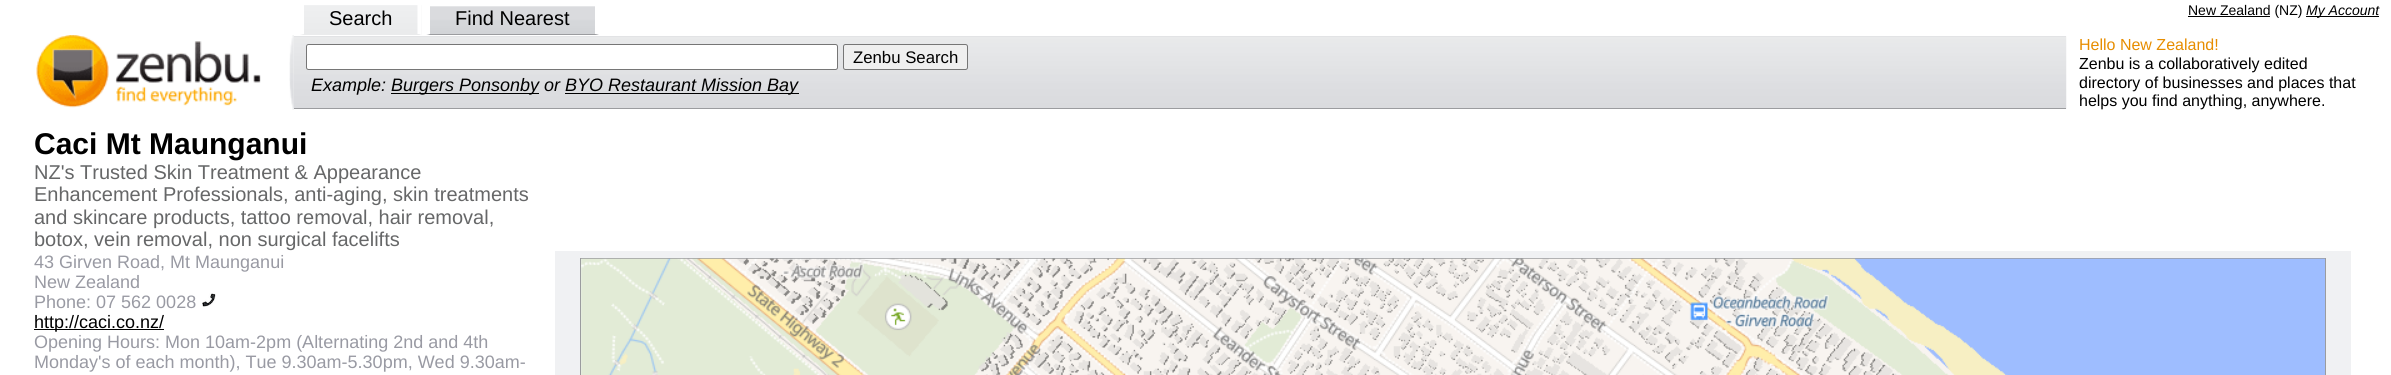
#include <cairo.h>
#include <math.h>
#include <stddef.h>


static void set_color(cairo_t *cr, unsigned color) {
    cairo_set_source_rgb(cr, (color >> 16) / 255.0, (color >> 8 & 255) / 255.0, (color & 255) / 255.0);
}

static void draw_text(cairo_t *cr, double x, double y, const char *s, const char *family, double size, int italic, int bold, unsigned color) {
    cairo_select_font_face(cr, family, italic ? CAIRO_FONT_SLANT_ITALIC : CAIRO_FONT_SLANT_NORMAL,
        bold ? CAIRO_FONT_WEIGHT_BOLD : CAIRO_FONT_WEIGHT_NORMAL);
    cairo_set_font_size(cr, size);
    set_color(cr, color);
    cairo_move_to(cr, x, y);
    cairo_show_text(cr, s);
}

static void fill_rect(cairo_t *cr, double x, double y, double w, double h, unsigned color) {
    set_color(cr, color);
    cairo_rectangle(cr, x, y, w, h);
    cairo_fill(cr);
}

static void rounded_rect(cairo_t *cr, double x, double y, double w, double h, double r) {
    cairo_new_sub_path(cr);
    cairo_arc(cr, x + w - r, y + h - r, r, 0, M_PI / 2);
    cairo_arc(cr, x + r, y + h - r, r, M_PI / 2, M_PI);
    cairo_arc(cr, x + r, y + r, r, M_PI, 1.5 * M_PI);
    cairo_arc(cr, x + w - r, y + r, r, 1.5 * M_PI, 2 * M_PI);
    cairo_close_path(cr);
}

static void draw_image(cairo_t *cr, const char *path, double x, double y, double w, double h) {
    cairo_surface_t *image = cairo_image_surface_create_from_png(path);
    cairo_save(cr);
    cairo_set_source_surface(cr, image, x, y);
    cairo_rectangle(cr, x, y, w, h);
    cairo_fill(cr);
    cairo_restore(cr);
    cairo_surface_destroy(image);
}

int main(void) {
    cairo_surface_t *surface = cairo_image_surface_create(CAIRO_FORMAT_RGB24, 2391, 375);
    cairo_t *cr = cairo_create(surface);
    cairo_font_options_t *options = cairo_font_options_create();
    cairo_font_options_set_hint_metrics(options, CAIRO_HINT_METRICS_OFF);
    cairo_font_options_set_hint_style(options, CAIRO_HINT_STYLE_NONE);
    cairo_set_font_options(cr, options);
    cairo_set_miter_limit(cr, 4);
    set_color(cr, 0xFFFFFF);
    cairo_paint(cr);
    fill_rect(cr, 2188, 16, 82, 1, 0x000000);
    draw_text(cr, 2188, 15, "New Zealand (NZ)", "Liberation Sans", 14, 0, 0, 0x000000);
    fill_rect(cr, 2306, 16, 73, 1, 0x000000);
    draw_text(cr, 2306, 15, "My Account", "Liberation Sans", 14, 1, 0, 0x000000);
    draw_image(cr, "assets/img1.png", 300, 5, 122, 30);
    draw_image(cr, "assets/img2.png", 426, 6, 173, 29);
    draw_text(cr, 329, 25, "Search", "Liberation Sans", 20, 0, 0, 0x000000);
    set_color(cr, 0xFFFFFF);
    cairo_new_path(cr);
    cairo_move_to(cr, 421, 2.5);
    cairo_line_to(cr, 421, 35);
    cairo_line_to(cr, 417.5, 34);
    cairo_line_to(cr, 417.5, 2.5);
    cairo_close_path(cr);
    cairo_fill(cr);
    set_color(cr, 0xEAEBEC);
    cairo_new_path(cr);
    cairo_move_to(cr, 421, 35);
    cairo_line_to(cr, 300, 35);
    cairo_line_to(cr, 304, 34);
    cairo_line_to(cr, 418, 34);
    cairo_close_path(cr);
    cairo_fill(cr);
    set_color(cr, 0xFFFFFF);
    cairo_new_path(cr);
    cairo_move_to(cr, 300, 35);
    cairo_line_to(cr, 300, 2.5);
    cairo_line_to(cr, 304, 2.5);
    cairo_line_to(cr, 304, 34);
    cairo_close_path(cr);
    cairo_fill(cr);
    draw_text(cr, 455, 25, "Find Nearest", "Liberation Sans", 20, 0, 0, 0x000000);
    set_color(cr, 0xFFFFFF);
    cairo_new_path(cr);
    cairo_move_to(cr, 599, 2.5);
    cairo_line_to(cr, 599, 35);
    cairo_line_to(cr, 595, 34);
    cairo_line_to(cr, 595, 2.5);
    cairo_close_path(cr);
    cairo_fill(cr);
    set_color(cr, 0x9B9C9F);
    cairo_new_path(cr);
    cairo_move_to(cr, 599, 35);
    cairo_line_to(cr, 426, 35);
    cairo_line_to(cr, 430, 34);
    cairo_line_to(cr, 595, 34);
    cairo_close_path(cr);
    cairo_fill(cr);
    set_color(cr, 0xFFFFFF);
    cairo_new_path(cr);
    cairo_move_to(cr, 426, 35);
    cairo_line_to(cr, 426, 2.5);
    cairo_line_to(cr, 430, 2.5);
    cairo_line_to(cr, 430, 34);
    cairo_close_path(cr);
    cairo_fill(cr);
    draw_image(cr, "assets/img3.png", 289, 35, 5, 75);
    draw_image(cr, "assets/img4.png", 36, 35, 225, 73);
    fill_rect(cr, 294, 36, 1772, 1, 0xDBDCDF);
    draw_image(cr, "assets/img5.png", 293, 36, 1774, 73);
    fill_rect(cr, 294, 108, 1772, 1, 0x9B9C9F);
    set_color(cr, 0xFFFFFF);
    rounded_rect(cr, 306.5, 44.5, 531, 25, 2);
    cairo_fill_preserve(cr);
    set_color(cr, 0x767676);
    cairo_set_line_width(cr, 1);
    cairo_stroke(cr);
    set_color(cr, 0xEFEFEF);
    rounded_rect(cr, 843.5, 44.5, 124, 25, 2);
    cairo_fill_preserve(cr);
    set_color(cr, 0x767676);
    cairo_stroke(cr);
    draw_text(cr, 853, 63, "Zenbu Search", "Liberation Sans", 16.75, 0, 0, 0x000000);
    draw_text(cr, 311, 91, "Example:", "Liberation Sans", 18, 1, 0, 0x000000);
    fill_rect(cr, 391, 93, 148, 1, 0x000000);
    draw_text(cr, 391, 91, "Burgers Ponsonby or", "Liberation Sans", 18, 1, 0, 0x000000);
    fill_rect(cr, 565, 93, 234, 1, 0x000000);
    draw_text(cr, 565, 91, "BYO Restaurant Mission Bay", "Liberation Sans", 18, 1, 0, 0x000000);
    draw_text(cr, 2079, 50, "Hello New Zealand!", "Liberation Sans", 16, 0, 0, 0xE78D00);
    draw_text(cr, 2079, 69, "Zenbu is a collaboratively edited", "Liberation Sans", 16, 0, 0, 0x000000);
    draw_text(cr, 2079, 88, "directory of businesses and places that", "Liberation Sans", 16, 0, 0, 0x000000);
    draw_text(cr, 2079, 106, "helps you find anything, anywhere.", "Liberation Sans", 16, 0, 0, 0x000000);
    draw_text(cr, 34, 154, "Caci Mt Maunganui", "Liberation Sans", 30, 0, 1, 0x000000);
    draw_text(cr, 34, 179, "NZ's Trusted Skin Treatment & Appearance", "Liberation Sans", 20, 0, 0, 0x666768);
    draw_text(cr, 34, 201, "Enhancement Professionals, anti-aging, skin treatments", "Liberation Sans", 20, 0, 0, 0x666768);
    draw_text(cr, 34, 224, "and skincare products, tattoo removal, hair removal,", "Liberation Sans", 20, 0, 0, 0x666768);
    draw_text(cr, 34, 246, "botox, vein removal, non surgical facelifts", "Liberation Sans", 20, 0, 0, 0x666768);
    draw_text(cr, 34, 268, "43 Girven Road, Mt Maunganui", "Liberation Sans", 18, 0, 0, 0x999AA3);
    draw_text(cr, 34, 288, "New Zealand", "Liberation Sans", 18, 0, 0, 0x999AA3);
    draw_text(cr, 34, 308, "Phone: 07 562 0028", "Liberation Sans", 18, 0, 0, 0x999AA3);
    draw_image(cr, "assets/img6.png", 202, 293, 14, 14);
    fill_rect(cr, 34, 329, 130, 1, 0x000000);
    draw_text(cr, 34, 328, "http://caci.co.nz/", "Liberation Sans", 18, 0, 0, 0x000000);
    draw_text(cr, 34, 348, "Opening Hours: Mon 10am-2pm (Alternating 2nd and 4th", "Liberation Sans", 18, 0, 0, 0x999AA3);
    draw_text(cr, 34, 368, "Monday's of each month), Tue 9.30am-5.30pm, Wed 9.30am-", "Liberation Sans", 18, 0, 0, 0x999AA3);
    fill_rect(cr, 555, 251, 1796, 124, 0xF0F1F3);
    cairo_rectangle(cr, 580.5, 258.5, 1745, 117);
    set_color(cr, 0x9B9C9F);
    cairo_stroke(cr);
    draw_image(cr, "assets/img7.png", 581, 258, 1744, 117);
    cairo_surface_write_to_png(surface, "output.png");
    cairo_font_options_destroy(options);
    cairo_destroy(cr);
    cairo_surface_destroy(surface);
    return 0;
}
